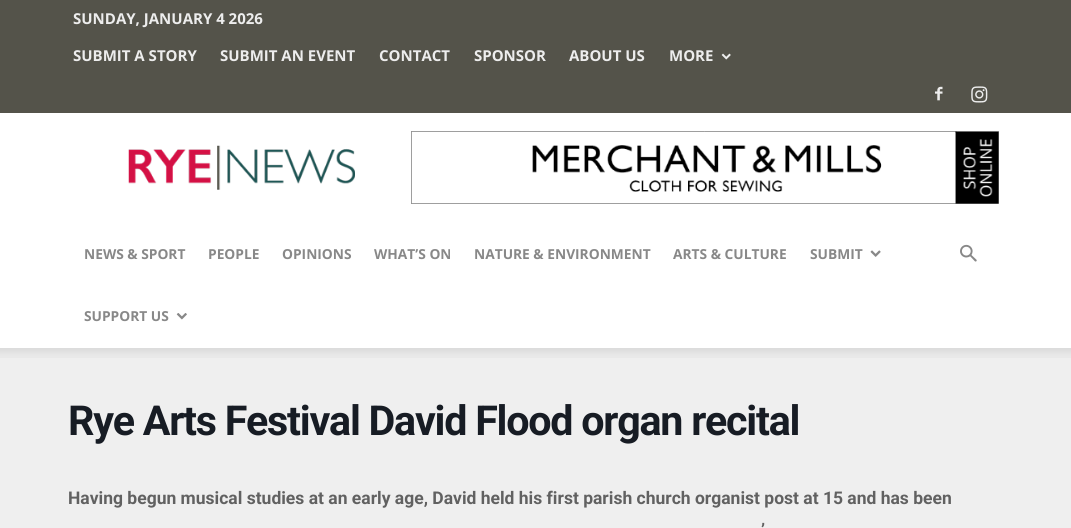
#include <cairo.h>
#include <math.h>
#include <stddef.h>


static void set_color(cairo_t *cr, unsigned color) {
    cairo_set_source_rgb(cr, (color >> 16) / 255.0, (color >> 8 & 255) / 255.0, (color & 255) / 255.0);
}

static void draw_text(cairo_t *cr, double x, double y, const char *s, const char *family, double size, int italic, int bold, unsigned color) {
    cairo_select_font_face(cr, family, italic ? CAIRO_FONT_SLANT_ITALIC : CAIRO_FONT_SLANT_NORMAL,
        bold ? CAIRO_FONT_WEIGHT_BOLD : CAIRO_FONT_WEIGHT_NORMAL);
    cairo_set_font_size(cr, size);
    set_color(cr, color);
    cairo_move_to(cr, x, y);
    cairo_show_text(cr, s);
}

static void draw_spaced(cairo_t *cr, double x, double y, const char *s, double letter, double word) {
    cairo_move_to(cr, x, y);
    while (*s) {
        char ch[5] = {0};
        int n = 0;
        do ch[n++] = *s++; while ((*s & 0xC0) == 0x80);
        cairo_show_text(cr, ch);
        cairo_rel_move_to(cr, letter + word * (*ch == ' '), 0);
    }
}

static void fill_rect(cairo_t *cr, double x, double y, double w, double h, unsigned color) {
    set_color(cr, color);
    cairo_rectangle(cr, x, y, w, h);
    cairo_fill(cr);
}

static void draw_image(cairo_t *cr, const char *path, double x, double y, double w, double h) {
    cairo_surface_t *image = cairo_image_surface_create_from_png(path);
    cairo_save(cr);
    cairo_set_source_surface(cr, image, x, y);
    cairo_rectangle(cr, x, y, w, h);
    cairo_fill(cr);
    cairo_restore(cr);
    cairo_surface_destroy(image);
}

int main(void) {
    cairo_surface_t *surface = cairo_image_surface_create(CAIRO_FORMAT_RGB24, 1071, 528);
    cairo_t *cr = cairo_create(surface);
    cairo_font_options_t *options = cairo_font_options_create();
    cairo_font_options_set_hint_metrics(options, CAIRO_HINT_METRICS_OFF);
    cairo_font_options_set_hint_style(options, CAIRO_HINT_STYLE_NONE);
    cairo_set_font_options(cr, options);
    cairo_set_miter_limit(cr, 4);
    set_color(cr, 0xEFEFEF);
    cairo_paint(cr);
    fill_rect(cr, 0, 0, 1071, 113, 0x54534A);
    draw_text(cr, 73, 24, "SUNDAY, JANUARY 4 2026", "Open Sans", 15, 0, 1, 0xEDEDED);
    draw_text(cr, 73, 61, "SUBMIT A STORY", "Open Sans", 15, 0, 1, 0xEDEDED);
    draw_text(cr, 220, 61, "SUBMIT AN EVENT", "Open Sans", 15, 0, 1, 0xEDEDED);
    draw_text(cr, 379, 61, "CONTACT", "Open Sans", 15, 0, 1, 0xEDEDED);
    draw_text(cr, 474, 61, "SPONSOR", "Open Sans", 15, 0, 1, 0xEDEDED);
    draw_text(cr, 569, 61, "ABOUT US", "Open Sans", 15, 0, 1, 0xEDEDED);
    draw_text(cr, 669, 61, "MORE", "Open Sans", 15, 0, 1, 0xEDEDED);
    draw_image(cr, "assets/img1.png", 721, 53, 10, 7);
    draw_image(cr, "assets/img2.png", 935, 86, 8, 15);
    draw_image(cr, "assets/img3.png", 971, 86, 17, 17);
    fill_rect(cr, 0, 113, 1071, 235, 0xFFFFFF);
    draw_image(cr, "assets/img4.png", 128, 145, 227, 45);
    draw_image(cr, "assets/img5.png", 411, 131, 588, 73);
    draw_text(cr, 84, 259, "NEWS & SPORT", "Open Sans", 13.75, 0, 1, 0x888888);
    draw_text(cr, 208, 259, "PEOPLE", "Open Sans", 13.75, 0, 1, 0x888888);
    draw_text(cr, 282, 259, "OPINIONS", "Open Sans", 13.75, 0, 1, 0x888888);
    draw_text(cr, 374, 259, "WHAT’S ON", "Open Sans", 13.75, 0, 1, 0x888888);
    draw_text(cr, 474, 259, "NATURE & ENVIRONMENT", "Open Sans", 13.75, 0, 1, 0x888888);
    draw_text(cr, 673, 259, "ARTS & CULTURE", "Open Sans", 13.75, 0, 1, 0x888888);
    draw_text(cr, 810, 259, "SUBMIT", "Open Sans", 13.75, 0, 1, 0x888888);
    draw_image(cr, "assets/img6.png", 870, 250, 11, 7);
    draw_text(cr, 84, 321, "SUPPORT US", "Open Sans", 13.75, 0, 1, 0x888888);
    draw_image(cr, "assets/img7.png", 176, 313, 11, 7);
    draw_image(cr, "assets/img8.png", 960, 244, 17, 18);
    draw_image(cr, "assets/img9.png", 0, 348, 1071, 10);
    cairo_select_font_face(cr, "Roboto", CAIRO_FONT_SLANT_NORMAL, CAIRO_FONT_WEIGHT_BOLD);
    cairo_set_font_size(cr, 41.25);
    set_color(cr, 0x171C24);
    draw_spaced(cr, 68, 435, "Rye Arts Festival David Flood organ recital", -1.25, 0);
    draw_text(cr, 68, 504, "Having begun musical studies at an early age, David held his first parish church organist post at 15 and has been", "Roboto", 17.5, 0, 1, 0x616161);
    draw_text(cr, 761, 536, "’", "Roboto", 17.5, 0, 1, 0x616161);
    cairo_surface_write_to_png(surface, "output.png");
    cairo_font_options_destroy(options);
    cairo_destroy(cr);
    cairo_surface_destroy(surface);
    return 0;
}
